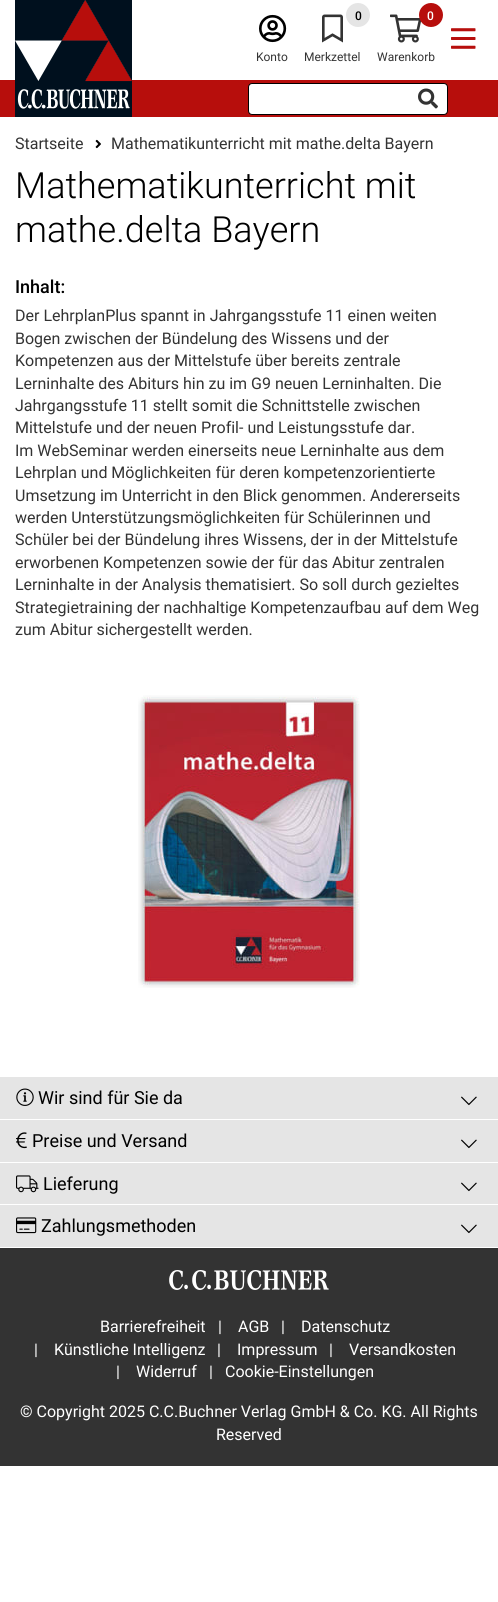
#include <cairo.h>
#include <math.h>
#include <stddef.h>


static void set_color(cairo_t *cr, unsigned color) {
    cairo_set_source_rgb(cr, (color >> 16) / 255.0, (color >> 8 & 255) / 255.0, (color & 255) / 255.0);
}

static void draw_text(cairo_t *cr, double x, double y, const char *s, const char *family, double size, int italic, int bold, unsigned color) {
    cairo_select_font_face(cr, family, italic ? CAIRO_FONT_SLANT_ITALIC : CAIRO_FONT_SLANT_NORMAL,
        bold ? CAIRO_FONT_WEIGHT_BOLD : CAIRO_FONT_WEIGHT_NORMAL);
    cairo_set_font_size(cr, size);
    set_color(cr, color);
    cairo_move_to(cr, x, y);
    cairo_show_text(cr, s);
}

static void fill_rect(cairo_t *cr, double x, double y, double w, double h, unsigned color) {
    set_color(cr, color);
    cairo_rectangle(cr, x, y, w, h);
    cairo_fill(cr);
}

static void rounded_rect(cairo_t *cr, double x, double y, double w, double h, double r) {
    cairo_new_sub_path(cr);
    cairo_arc(cr, x + w - r, y + h - r, r, 0, M_PI / 2);
    cairo_arc(cr, x + r, y + h - r, r, M_PI / 2, M_PI);
    cairo_arc(cr, x + r, y + r, r, M_PI, 1.5 * M_PI);
    cairo_arc(cr, x + w - r, y + r, r, 1.5 * M_PI, 2 * M_PI);
    cairo_close_path(cr);
}

static void draw_image(cairo_t *cr, const char *path, double x, double y, double w, double h) {
    cairo_surface_t *image = cairo_image_surface_create_from_png(path);
    cairo_save(cr);
    cairo_set_source_surface(cr, image, x, y);
    cairo_rectangle(cr, x, y, w, h);
    cairo_fill(cr);
    cairo_restore(cr);
    cairo_surface_destroy(image);
}

int main(void) {
    cairo_surface_t *surface = cairo_image_surface_create(CAIRO_FORMAT_RGB24, 498, 1602);
    cairo_t *cr = cairo_create(surface);
    cairo_font_options_t *options = cairo_font_options_create();
    cairo_font_options_set_hint_metrics(options, CAIRO_HINT_METRICS_OFF);
    cairo_font_options_set_hint_style(options, CAIRO_HINT_STYLE_NONE);
    cairo_set_font_options(cr, options);
    cairo_set_miter_limit(cr, 4);
    set_color(cr, 0xFFFFFF);
    cairo_paint(cr);
    fill_rect(cr, 0, 80, 498, 37, 0xB70E0C);
    draw_image(cr, "assets/img1.png", 15, 0, 117, 117);
    draw_image(cr, "assets/img2.png", 322, 14, 21, 29);
    set_color(cr, 0xE5E5E5);
    cairo_arc(cr, 358, 15, 12, 0, 2 * M_PI);
    cairo_fill(cr);
    draw_text(cr, 355, 20, "0", "Roboto Medium", 12, 0, 0, 0x000000);
    draw_text(cr, 304, 61, "Merkzettel", "Roboto", 12, 0, 0, 0x333333);
    draw_image(cr, "assets/img3.png", 390, 14, 32, 29);
    set_color(cr, 0xB70E0C);
    cairo_arc(cr, 431, 15, 12, 0, 2 * M_PI);
    cairo_fill(cr);
    draw_text(cr, 427, 20, "0", "Roboto Medium", 12, 0, 0, 0xFFFFFF);
    draw_text(cr, 377, 61, "Warenkorb", "Roboto", 12, 0, 0, 0x333333);
    draw_image(cr, "assets/img4.png", 451, 28, 25, 21);
    draw_image(cr, "assets/img5.png", 259, 14, 28, 29);
    draw_text(cr, 256, 61, "Konto", "Roboto", 12, 0, 0, 0x333333);
    set_color(cr, 0xFFFFFF);
    rounded_rect(cr, 248.5, 83.5, 199, 31, 3.5);
    cairo_fill_preserve(cr);
    set_color(cr, 0x000000);
    cairo_set_line_width(cr, 1);
    cairo_stroke(cr);
    draw_image(cr, "assets/img6.png", 418, 88, 20, 21);
    draw_text(cr, 15, 149, "Startseite", "Roboto", 16, 0, 0, 0x333333);
    draw_image(cr, "assets/img7.png", 95, 139, 6, 10);
    draw_text(cr, 111, 149, "Mathematikunterricht mit mathe.delta Bayern", "Roboto", 16, 0, 0, 0x333333);
    draw_text(cr, 15, 198, "Mathematikunterricht mit", "Roboto Light", 36, 0, 0, 0x000000);
    draw_text(cr, 15, 242, "mathe.delta Bayern", "Roboto Light", 36, 0, 0, 0x000000);
    draw_text(cr, 15, 293, "Inhalt:", "Roboto Medium", 18, 0, 0, 0x000000);
    draw_text(cr, 15, 321, "Der LehrplanPlus spannt in Jahrgangsstufe 11 einen weiten", "Roboto", 16, 0, 0, 0x333333);
    draw_text(cr, 15, 344, "Bogen zwischen der Bündelung des Wissens und der", "Roboto", 16, 0, 0, 0x333333);
    draw_text(cr, 15, 366, "Kompetenzen aus der Mittelstufe über bereits zentrale", "Roboto", 16, 0, 0, 0x333333);
    draw_text(cr, 15, 389, "Lerninhalte des Abiturs hin zu im G9 neuen Lerninhalten. Die", "Roboto", 16, 0, 0, 0x333333);
    draw_text(cr, 15, 411, "Jahrgangsstufe 11 stellt somit die Schnittstelle zwischen", "Roboto", 16, 0, 0, 0x333333);
    draw_text(cr, 15, 433, "Mittelstufe und der neuen Profil- und Leistungsstufe dar.", "Roboto", 16, 0, 0, 0x333333);
    draw_text(cr, 15, 456, "Im WebSeminar werden einerseits neue Lerninhalte aus dem", "Roboto", 16, 0, 0, 0x333333);
    draw_text(cr, 15, 478, "Lehrplan und Möglichkeiten für deren kompetenzorientierte", "Roboto", 16, 0, 0, 0x333333);
    draw_text(cr, 15, 501, "Umsetzung im Unterricht in den Blick genommen. Andererseits", "Roboto", 16, 0, 0, 0x333333);
    draw_text(cr, 15, 523, "werden Unterstützungsmöglichkeiten für Schülerinnen und", "Roboto", 16, 0, 0, 0x333333);
    draw_text(cr, 15, 545, "Schüler bei der Bündelung ihres Wissens, der in der Mittelstufe", "Roboto", 16, 0, 0, 0x333333);
    draw_text(cr, 15, 568, "erworbenen Kompetenzen sowie der für das Abitur zentralen", "Roboto", 16, 0, 0, 0x333333);
    draw_text(cr, 15, 590, "Lerninhalte in der Analysis thematisiert. So soll durch gezieltes", "Roboto", 16, 0, 0, 0x333333);
    draw_text(cr, 15, 613, "Strategietraining der nachhaltige Kompetenzaufbau auf dem Weg", "Roboto", 16, 0, 0, 0x333333);
    draw_text(cr, 15, 635, "zum Abitur sichergestellt werden.", "Roboto", 16, 0, 0, 0x333333);
    draw_image(cr, "assets/img8.png", 138, 695, 222, 293);
    fill_rect(cr, 0, 1077, 498, 170, 0xE5E5E5);
    draw_image(cr, "assets/img9.png", 16, 1088, 18, 18);
    draw_text(cr, 38, 1104, "Wir sind für Sie da", "Roboto", 18, 0, 0, 0x000000);
    draw_image(cr, "assets/img10.png", 461, 1096, 16, 10);
    fill_rect(cr, 0, 1119, 498, 1, 0xFFFFFF);
    draw_image(cr, "assets/img11.png", 16, 1132, 11, 17);
    draw_text(cr, 32, 1147, "Preise und Versand", "Roboto", 18, 0, 0, 0x000000);
    draw_image(cr, "assets/img10.png", 461, 1139, 16, 10);
    fill_rect(cr, 0, 1162, 498, 1, 0xFFFFFF);
    draw_image(cr, "assets/img12.png", 16, 1175, 23, 18);
    draw_text(cr, 43, 1190, "Lieferung", "Roboto", 18, 0, 0, 0x000000);
    draw_image(cr, "assets/img10.png", 461, 1182, 16, 10);
    fill_rect(cr, 0, 1204, 498, 1, 0xFFFFFF);
    draw_image(cr, "assets/img13.png", 16, 1217, 21, 17);
    draw_text(cr, 41, 1232, "Zahlungsmethoden", "Roboto", 18, 0, 0, 0x000000);
    draw_image(cr, "assets/img10.png", 461, 1224, 16, 10);
    fill_rect(cr, 0, 1248, 498, 218, 0x333333);
    draw_image(cr, "assets/img14.png", 169, 1270, 160, 20);
    draw_text(cr, 100, 1332, "Barrierefreiheit", "Roboto", 16, 0, 0, 0xFFFFFF);
    draw_text(cr, 218, 1332, "|", "Roboto", 16, 0, 0, 0xFFFFFF);
    draw_text(cr, 238, 1332, "AGB", "Roboto", 16, 0, 0, 0xFFFFFF);
    draw_text(cr, 281, 1332, "|", "Roboto", 16, 0, 0, 0xFFFFFF);
    draw_text(cr, 301, 1332, "Datenschutz", "Roboto", 16, 0, 0, 0xFFFFFF);
    draw_text(cr, 34, 1355, "|", "Roboto", 16, 0, 0, 0xFFFFFF);
    draw_text(cr, 54, 1355, "Künstliche Intelligenz", "Roboto", 16, 0, 0, 0xFFFFFF);
    draw_text(cr, 217, 1355, "|", "Roboto", 16, 0, 0, 0xFFFFFF);
    draw_text(cr, 237, 1355, "Impressum", "Roboto", 16, 0, 0, 0xFFFFFF);
    draw_text(cr, 329, 1355, "|", "Roboto", 16, 0, 0, 0xFFFFFF);
    draw_text(cr, 349, 1355, "Versandkosten", "Roboto", 16, 0, 0, 0xFFFFFF);
    draw_text(cr, 116, 1377, "|", "Roboto", 16, 0, 0, 0xFFFFFF);
    draw_text(cr, 136, 1377, "Widerruf", "Roboto", 16, 0, 0, 0xFFFFFF);
    draw_text(cr, 209, 1377, "|", "Roboto", 16, 0, 0, 0xFFFFFF);
    draw_text(cr, 225, 1377, "Cookie-Einstellungen", "Roboto", 16, 0, 0, 0xFFFFFF);
    draw_text(cr, 20, 1417, "© Copyright 2025 C.C.Buchner Verlag GmbH & Co. KG. All Rights", "Roboto", 16, 0, 0, 0xFFFFFF);
    draw_text(cr, 216, 1440, "Reserved", "Roboto", 16, 0, 0, 0xFFFFFF);
    cairo_surface_write_to_png(surface, "output.png");
    cairo_font_options_destroy(options);
    cairo_destroy(cr);
    cairo_surface_destroy(surface);
    return 0;
}
